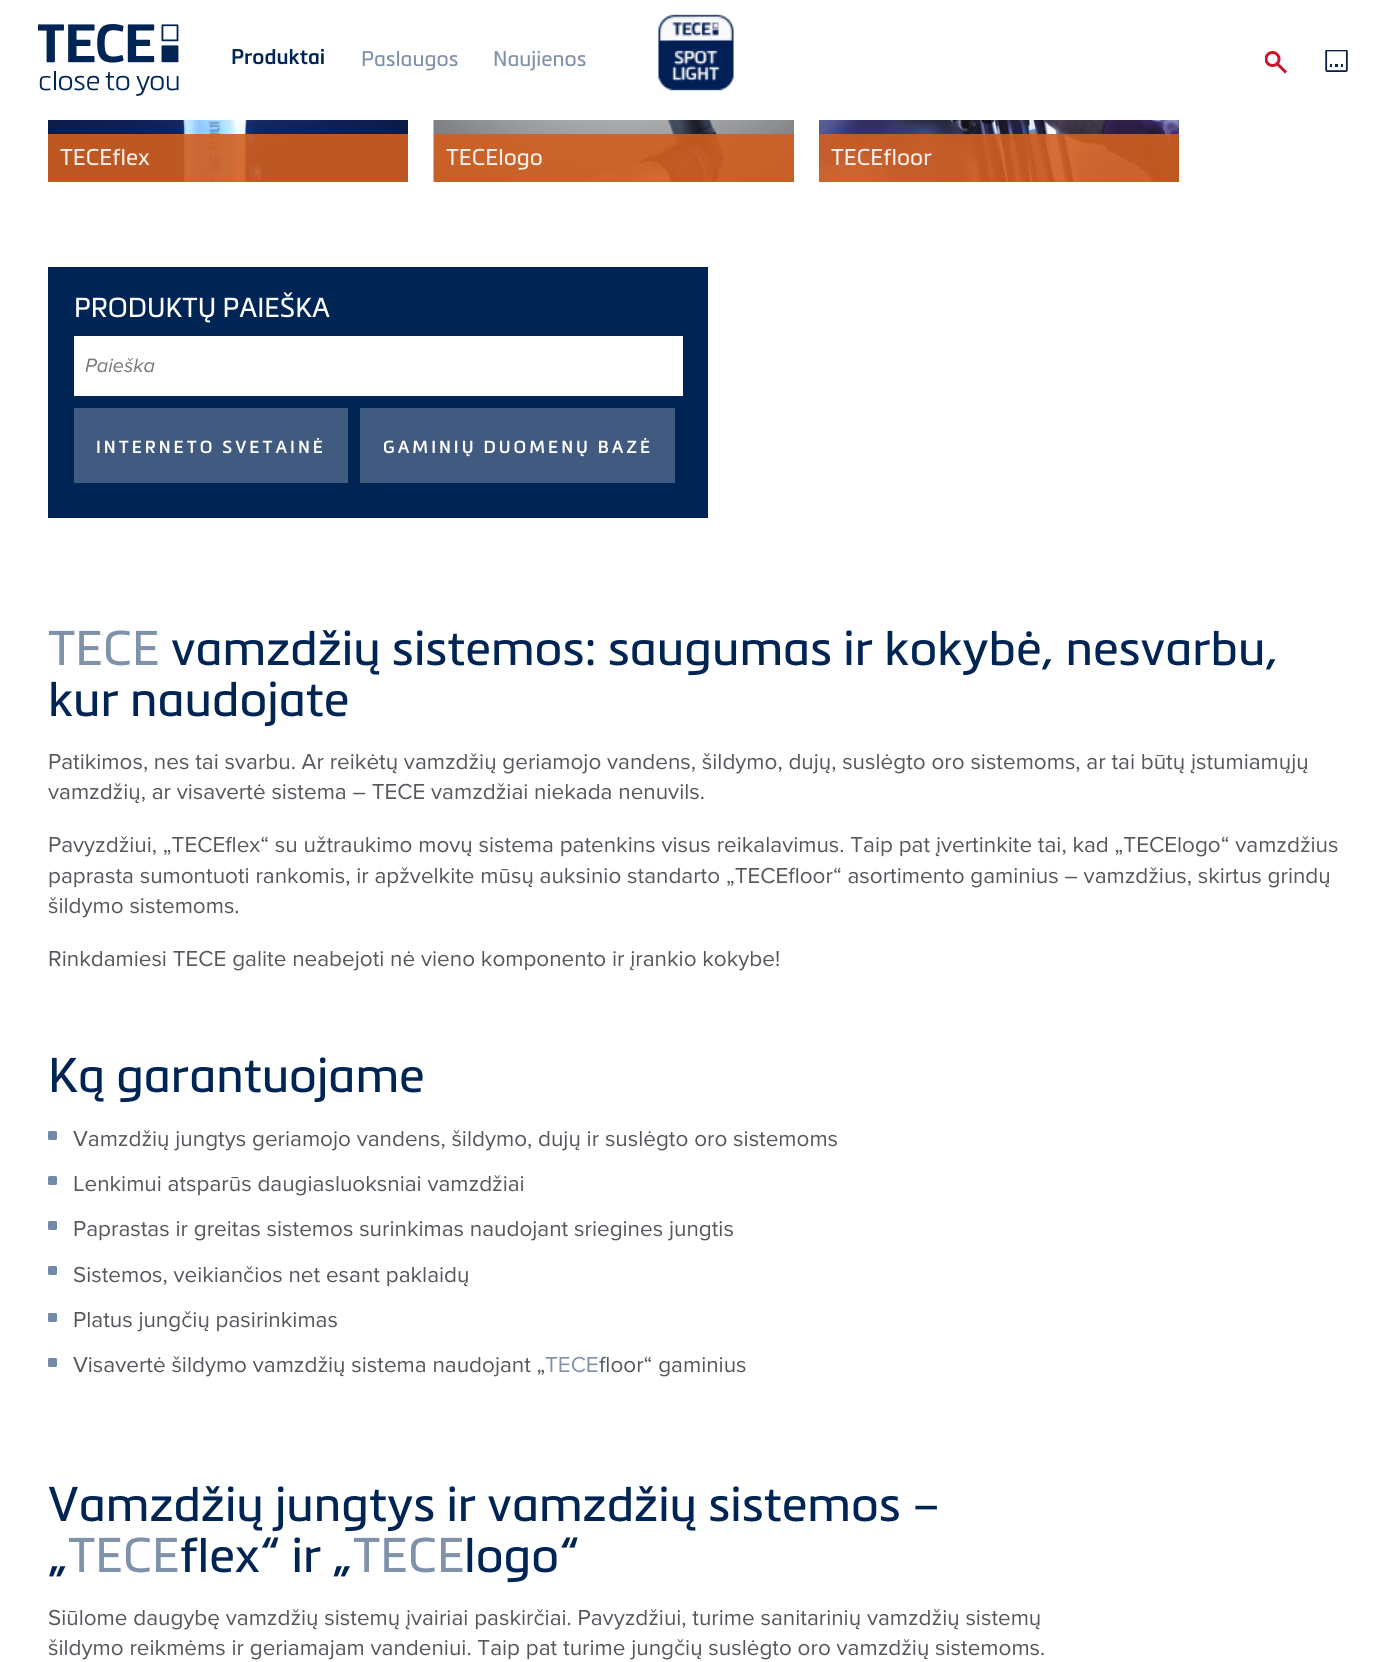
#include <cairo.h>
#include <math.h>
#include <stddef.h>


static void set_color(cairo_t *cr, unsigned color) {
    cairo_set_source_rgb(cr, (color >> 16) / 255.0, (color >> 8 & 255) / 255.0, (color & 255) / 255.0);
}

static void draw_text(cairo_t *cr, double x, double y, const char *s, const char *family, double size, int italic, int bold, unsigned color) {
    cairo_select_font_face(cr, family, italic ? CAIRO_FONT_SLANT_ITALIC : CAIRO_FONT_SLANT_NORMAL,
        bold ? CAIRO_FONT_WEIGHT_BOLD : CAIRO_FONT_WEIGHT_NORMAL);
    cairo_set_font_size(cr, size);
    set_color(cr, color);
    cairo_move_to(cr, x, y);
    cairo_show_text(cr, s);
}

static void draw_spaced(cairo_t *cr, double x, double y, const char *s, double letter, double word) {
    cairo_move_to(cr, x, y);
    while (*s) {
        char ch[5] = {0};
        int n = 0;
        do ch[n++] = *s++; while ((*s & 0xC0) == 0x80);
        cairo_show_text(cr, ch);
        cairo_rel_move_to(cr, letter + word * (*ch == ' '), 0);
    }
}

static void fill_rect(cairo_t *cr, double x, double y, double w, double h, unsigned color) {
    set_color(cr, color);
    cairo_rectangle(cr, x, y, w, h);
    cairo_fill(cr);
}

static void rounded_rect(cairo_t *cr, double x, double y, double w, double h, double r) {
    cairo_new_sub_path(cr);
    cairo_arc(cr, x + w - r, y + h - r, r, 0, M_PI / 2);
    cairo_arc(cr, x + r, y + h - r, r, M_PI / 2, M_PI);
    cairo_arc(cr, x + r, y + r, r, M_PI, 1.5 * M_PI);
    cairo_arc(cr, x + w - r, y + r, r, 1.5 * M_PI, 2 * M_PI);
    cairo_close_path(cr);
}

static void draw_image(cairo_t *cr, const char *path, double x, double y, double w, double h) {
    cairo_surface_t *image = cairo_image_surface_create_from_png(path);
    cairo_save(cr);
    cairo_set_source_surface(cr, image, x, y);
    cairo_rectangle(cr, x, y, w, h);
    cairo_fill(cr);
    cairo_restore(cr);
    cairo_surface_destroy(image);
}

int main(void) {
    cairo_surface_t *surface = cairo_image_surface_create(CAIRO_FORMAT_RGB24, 1389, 1662);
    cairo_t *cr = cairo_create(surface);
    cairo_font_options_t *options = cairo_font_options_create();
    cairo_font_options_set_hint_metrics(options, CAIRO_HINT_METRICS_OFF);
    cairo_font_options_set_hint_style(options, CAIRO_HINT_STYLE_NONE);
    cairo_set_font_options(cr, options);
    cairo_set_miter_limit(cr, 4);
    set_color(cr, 0xFFFFFF);
    cairo_paint(cr);
    draw_image(cr, "assets/img1.png", 38, 24, 141, 72);
    draw_text(cr, 231, 64, "Produktai", "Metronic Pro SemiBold", 21, 0, 0, 0x002554);
    draw_text(cr, 361, 66, "Paslaugos", "Metronic Pro", 21, 0, 0, 0x8092A9);
    draw_text(cr, 493, 66, "Naujienos", "Metronic Pro", 21, 0, 0, 0x8092A9);
    draw_image(cr, "assets/img2.png", 658, 14, 76, 77);
    cairo_save(cr);
    cairo_rectangle(cr, 1265, 51, 22, 23);
    cairo_clip(cr);
    cairo_arc(cr, 1272.5, 59, 6.5, 0, 2 * M_PI);
    set_color(cr, 0xCF132C);
    cairo_set_line_width(cr, 3);
    cairo_stroke(cr);
    cairo_restore(cr);
    cairo_new_path(cr);
    cairo_move_to(cr, 1278, 64.5);
    cairo_line_to(cr, 1285, 71.5);
    set_color(cr, 0xCF132C);
    cairo_set_line_width(cr, 3);
    cairo_set_line_cap(cr, CAIRO_LINE_CAP_SQUARE);
    cairo_stroke(cr);
    draw_image(cr, "assets/img3.png", 1325, 50, 23, 22);
    fill_rect(cr, 48, 181, 360, 1, 0xD15F20);
    draw_image(cr, "assets/img4.png", 48, 120, 360, 62);
    cairo_set_source_rgba(cr, 0.82, 0.373, 0.125, 0.9);
    cairo_rectangle(cr, 48, 134, 360, 48);
    cairo_fill(cr);
    draw_text(cr, 60, 165, "TECEflex", "Metronic Pro", 22.5, 0, 0, 0xF8EEE9);
    fill_rect(cr, 434, 120, 360, 62, 0xD15F20);
    draw_image(cr, "assets/img5.png", 433, 120, 361, 62);
    cairo_set_source_rgba(cr, 0.82, 0.373, 0.125, 0.9);
    cairo_rectangle(cr, 434, 134, 360, 48);
    cairo_fill(cr);
    draw_text(cr, 446, 165, "TECElogo", "Metronic Pro", 22.5, 0, 0, 0xF8EEE9);
    fill_rect(cr, 819, 181, 360, 1, 0xD15F20);
    draw_image(cr, "assets/img6.png", 819, 120, 360, 62);
    cairo_set_source_rgba(cr, 0.82, 0.373, 0.125, 0.9);
    cairo_rectangle(cr, 819, 134, 360, 48);
    cairo_fill(cr);
    draw_text(cr, 831, 165, "TECEfloor", "Metronic Pro", 22.5, 0, 0, 0xF8EEE9);
    fill_rect(cr, 48, 267, 660, 251, 0x002554);
    draw_text(cr, 74, 317, "PRODUKTŲ PAIEŠKA", "Metronic Pro", 27, 0, 0, 0xFFFFFF);
    fill_rect(cr, 74, 336, 609, 60, 0xFFFFFF);
    cairo_save(cr);
    cairo_rectangle(cr, 86, 351, 585, 29);
    cairo_clip(cr);
    draw_text(cr, 85, 372, "Paieška", "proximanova", 20, 1, 0, 0x757575);
    cairo_restore(cr);
    fill_rect(cr, 74, 408, 274, 75, 0x405B7F);
    cairo_select_font_face(cr, "Metronic Pro SemiBold", CAIRO_FONT_SLANT_NORMAL, CAIRO_FONT_WEIGHT_NORMAL);
    cairo_set_font_size(cr, 17.25);
    set_color(cr, 0xFFFFFF);
    draw_spaced(cr, 96, 453, "INTERNETO SVETAINĖ", 3, 0);
    fill_rect(cr, 360, 408, 315, 75, 0x405B7F);
    set_color(cr, 0xFFFFFF);
    draw_spaced(cr, 383, 453, "GAMINIŲ DUOMENŲ BAZĖ", 3, 0);
    draw_text(cr, 48, 665, "TECE", "Metronic Pro", 48, 0, 0, 0x8092A9);
    draw_text(cr, 171, 665, "vamzdžių sistemos: saugumas ir kokybė, nesvarbu,", "Metronic Pro", 48, 0, 0, 0x002554);
    draw_text(cr, 48, 716, "kur naudojate", "Metronic Pro", 48, 0, 0, 0x002554);
    draw_text(cr, 48, 769, "Patikimos, nes tai svarbu. Ar reikėtų vamzdžių geriamojo vandens, šildymo, dujų, suslėgto oro sistemoms, ar tai būtų įstumiamųjų", "Proxima Nova", 22.5, 0, 0, 0x54585D);
    draw_text(cr, 48, 799, "vamzdžių, ar visavertė sistema – TECE vamzdžiai niekada nenuvils.", "Proxima Nova", 22.5, 0, 0, 0x54585D);
    draw_text(cr, 48, 852, "Pavyzdžiui, „TECEflex“ su užtraukimo movų sistema patenkins visus reikalavimus. Taip pat įvertinkite tai, kad „TECElogo“ vamzdžius", "Proxima Nova", 22.5, 0, 0, 0x54585D);
    draw_text(cr, 48, 883, "paprasta sumontuoti rankomis, ir apžvelkite mūsų auksinio standarto „TECEfloor“ asortimento gaminius – vamzdžius, skirtus grindų", "Proxima Nova", 22.5, 0, 0, 0x54585D);
    draw_text(cr, 48, 913, "šildymo sistemoms.", "Proxima Nova", 22.5, 0, 0, 0x54585D);
    draw_text(cr, 48, 966, "Rinkdamiesi TECE galite neabejoti nė vieno komponento ir įrankio kokybe!", "Proxima Nova", 22.5, 0, 0, 0x54585D);
    draw_text(cr, 48, 1092, "Ką garantuojame", "Metronic Pro", 48, 0, 0, 0x002554);
    set_color(cr, 0x7389A9);
    rounded_rect(cr, 48, 1131, 9, 9, 1.5);
    cairo_fill(cr);
    draw_text(cr, 73, 1146, "Vamzdžių jungtys geriamojo vandens, šildymo, dujų ir suslėgto oro sistemoms", "Proxima Nova", 22.5, 0, 0, 0x54585D);
    set_color(cr, 0x7389A9);
    rounded_rect(cr, 48, 1176, 9, 9, 1.5);
    cairo_fill(cr);
    draw_text(cr, 73, 1191, "Lenkimui atsparūs daugiasluoksniai vamzdžiai", "Proxima Nova", 22.5, 0, 0, 0x54585D);
    set_color(cr, 0x7389A9);
    rounded_rect(cr, 48, 1221, 9, 9, 1.5);
    cairo_fill(cr);
    draw_text(cr, 73, 1236, "Paprastas ir greitas sistemos surinkimas naudojant sriegines jungtis", "Proxima Nova", 22.5, 0, 0, 0x54585D);
    set_color(cr, 0x7389A9);
    rounded_rect(cr, 48, 1266, 9, 9, 1.5);
    cairo_fill(cr);
    draw_text(cr, 73, 1282, "Sistemos, veikiančios net esant paklaidų", "Proxima Nova", 22.5, 0, 0, 0x54585D);
    set_color(cr, 0x7389A9);
    rounded_rect(cr, 48, 1313, 9, 9, 1.5);
    cairo_fill(cr);
    draw_text(cr, 73, 1327, "Platus jungčių pasirinkimas", "Proxima Nova", 22.5, 0, 0, 0x54585D);
    set_color(cr, 0x7389A9);
    rounded_rect(cr, 48, 1358, 9, 9, 1.5);
    cairo_fill(cr);
    draw_text(cr, 73, 1372, "Visavertė šildymo vamzdžių sistema naudojant „", "Proxima Nova", 22.5, 0, 0, 0x54585D);
    draw_text(cr, 545, 1372, "TECE", "Proxima Nova", 22.5, 0, 0, 0x8092A9);
    draw_text(cr, 599, 1372, "floor“ gaminius", "Proxima Nova", 22.5, 0, 0, 0x54585D);
    draw_text(cr, 48, 1521, "Vamzdžių jungtys ir vamzdžių sistemos –", "Metronic Pro", 48, 0, 0, 0x002554);
    draw_text(cr, 48, 1572, "„", "Metronic Pro", 48, 0, 0, 0x002554);
    draw_text(cr, 68, 1572, "TECE", "Metronic Pro", 48, 0, 0, 0x8092A9);
    draw_text(cr, 180, 1572, "flex“ ir „", "Metronic Pro", 48, 0, 0, 0x002554);
    draw_text(cr, 353, 1572, "TECE", "Metronic Pro", 48, 0, 0, 0x8092A9);
    draw_text(cr, 464, 1572, "logo“", "Metronic Pro", 48, 0, 0, 0x002554);
    draw_text(cr, 48, 1625, "Siūlome daugybę vamzdžių sistemų įvairiai paskirčiai. Pavyzdžiui, turime sanitarinių vamzdžių sistemų", "Proxima Nova", 22.5, 0, 0, 0x54585D);
    draw_text(cr, 48, 1655, "šildymo reikmėms ir geriamajam vandeniui. Taip pat turime jungčių suslėgto oro vamzdžių sistemoms.", "Proxima Nova", 22.5, 0, 0, 0x54585D);
    cairo_surface_write_to_png(surface, "output.png");
    cairo_font_options_destroy(options);
    cairo_destroy(cr);
    cairo_surface_destroy(surface);
    return 0;
}
